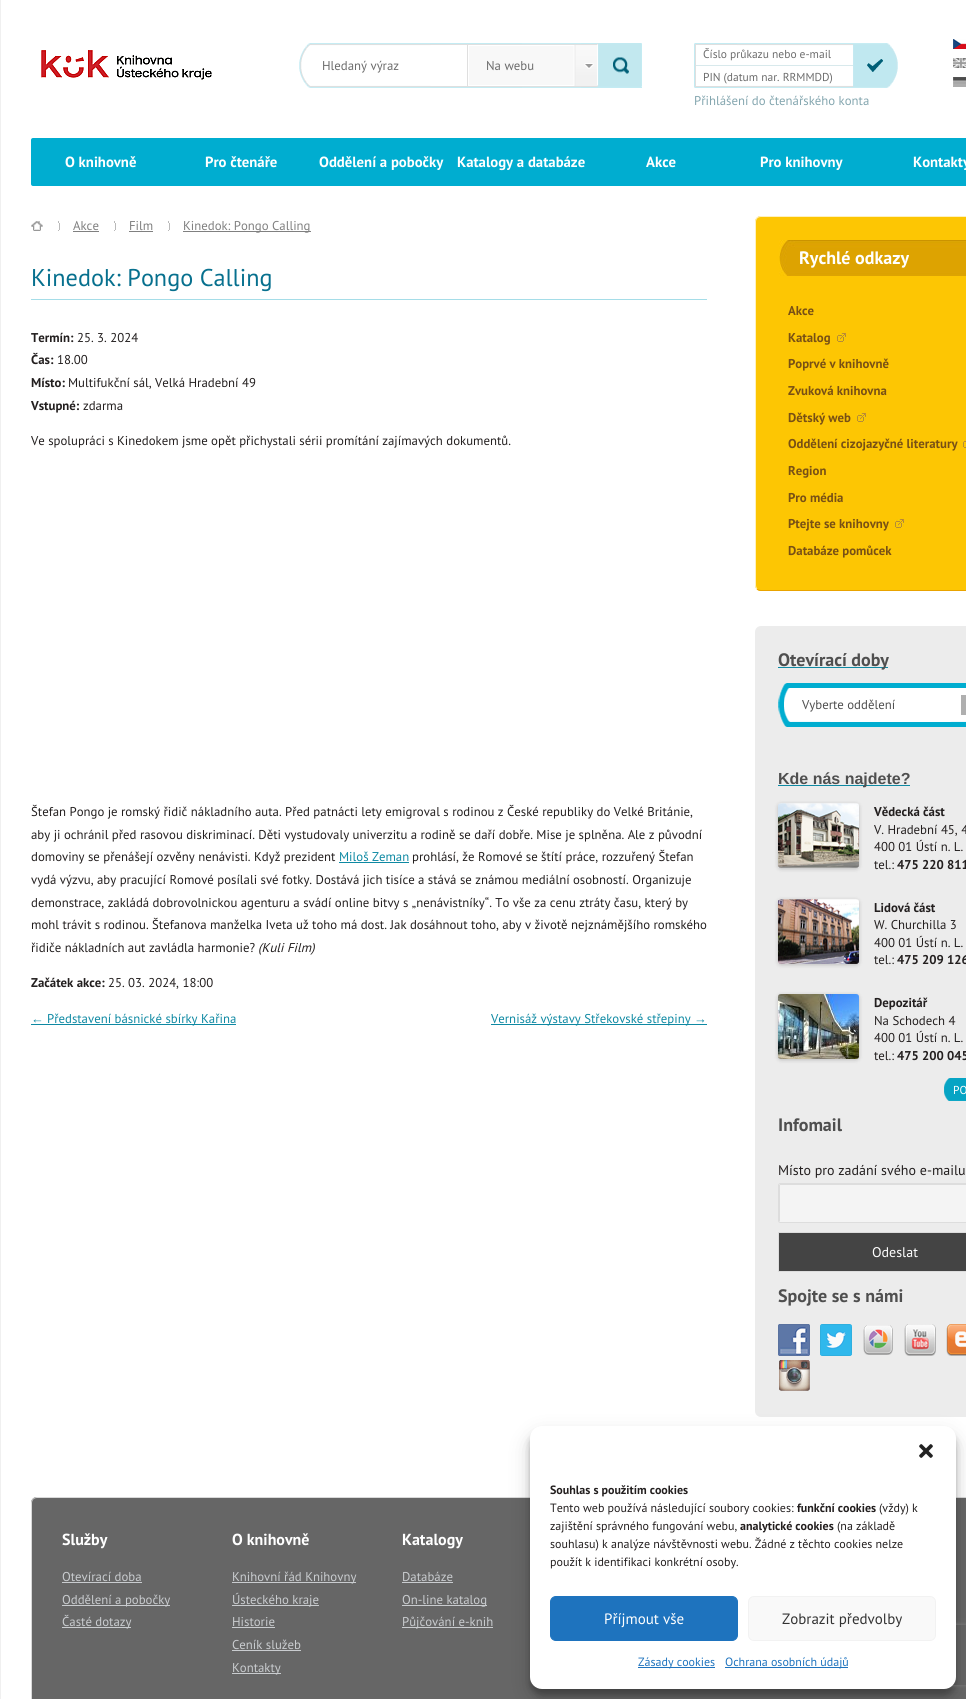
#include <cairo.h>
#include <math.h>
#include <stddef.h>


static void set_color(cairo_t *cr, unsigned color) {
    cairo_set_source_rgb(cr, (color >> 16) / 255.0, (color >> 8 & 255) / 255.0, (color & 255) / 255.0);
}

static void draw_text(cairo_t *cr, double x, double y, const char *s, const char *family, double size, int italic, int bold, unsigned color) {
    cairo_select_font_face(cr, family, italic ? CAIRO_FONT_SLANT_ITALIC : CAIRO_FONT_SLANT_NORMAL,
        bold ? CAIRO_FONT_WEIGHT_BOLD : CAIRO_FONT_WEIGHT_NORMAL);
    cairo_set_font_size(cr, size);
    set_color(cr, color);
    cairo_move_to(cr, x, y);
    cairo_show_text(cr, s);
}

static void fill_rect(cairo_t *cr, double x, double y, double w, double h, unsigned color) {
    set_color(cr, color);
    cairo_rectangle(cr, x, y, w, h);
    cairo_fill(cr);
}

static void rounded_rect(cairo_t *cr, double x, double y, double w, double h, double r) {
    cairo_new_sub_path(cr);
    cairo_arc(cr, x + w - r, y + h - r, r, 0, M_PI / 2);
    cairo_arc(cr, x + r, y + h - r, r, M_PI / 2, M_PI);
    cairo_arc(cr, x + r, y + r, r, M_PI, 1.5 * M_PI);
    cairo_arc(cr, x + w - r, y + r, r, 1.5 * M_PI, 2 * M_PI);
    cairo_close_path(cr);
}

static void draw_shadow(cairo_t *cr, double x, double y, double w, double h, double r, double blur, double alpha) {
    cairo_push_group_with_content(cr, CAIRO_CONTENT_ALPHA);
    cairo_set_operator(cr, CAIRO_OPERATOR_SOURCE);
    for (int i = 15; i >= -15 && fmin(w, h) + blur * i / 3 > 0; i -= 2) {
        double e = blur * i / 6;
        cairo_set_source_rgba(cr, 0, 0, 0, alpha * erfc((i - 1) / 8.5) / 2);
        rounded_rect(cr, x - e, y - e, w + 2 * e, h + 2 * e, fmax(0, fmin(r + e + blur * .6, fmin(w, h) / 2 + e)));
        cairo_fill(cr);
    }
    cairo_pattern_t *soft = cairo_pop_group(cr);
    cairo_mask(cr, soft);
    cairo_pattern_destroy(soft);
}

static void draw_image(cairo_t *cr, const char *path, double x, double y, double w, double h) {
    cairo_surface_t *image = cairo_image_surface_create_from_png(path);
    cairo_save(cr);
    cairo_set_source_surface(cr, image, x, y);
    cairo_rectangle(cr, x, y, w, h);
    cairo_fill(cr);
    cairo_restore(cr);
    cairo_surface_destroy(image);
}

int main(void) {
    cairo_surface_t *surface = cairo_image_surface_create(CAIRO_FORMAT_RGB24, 966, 1699);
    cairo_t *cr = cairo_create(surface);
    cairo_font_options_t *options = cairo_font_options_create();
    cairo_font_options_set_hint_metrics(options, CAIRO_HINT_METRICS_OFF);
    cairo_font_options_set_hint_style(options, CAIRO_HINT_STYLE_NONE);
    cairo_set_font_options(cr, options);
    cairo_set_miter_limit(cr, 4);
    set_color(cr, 0xFFFFFF);
    cairo_paint(cr);
    fill_rect(cr, 0, 0, 1, 1699, 0xF0F0F0);
    draw_image(cr, "assets/img1.png", 41, 50, 171, 30);
    draw_image(cr, "assets/img2.png", 299, 43, 343, 45);
    draw_text(cr, 322, 70, "Hledaný výraz", "PT Sans", 12.8, 0, 0, 0x6C6C6C);
    draw_image(cr, "assets/img3.png", 469, 45, 97, 41);
    fill_rect(cr, 467, 45, 1, 41, 0xDFDFDF);
    draw_image(cr, "assets/img4.png", 566, 45, 31, 41);
    draw_text(cr, 486, 70, "Na webu", "PT Sans", 12.8, 0, 0, 0x6C6C6C);
    draw_image(cr, "assets/img5.png", 597, 43, 45, 44);
    draw_image(cr, "assets/img6.png", 694, 43, 204, 45);
    draw_text(cr, 703, 58, "Číslo průkazu nebo e-mail", "PT Sans", 11.5, 0, 0, 0x6C6C6C);
    draw_text(cr, 703, 81, "PIN (datum nar. RRMMDD)", "PT Sans", 11.5, 0, 0, 0x6C6C6C);
    draw_text(cr, 694, 105, "Přihlášení do čtenářského konta", "PT Sans", 12.8, 0, 0, 0x84A6AF);
    draw_image(cr, "assets/img7.png", 953, 39, 13, 10);
    draw_image(cr, "assets/img8.png", 953, 58, 13, 10);
    draw_image(cr, "assets/img9.png", 953, 77, 13, 10);
    set_color(cr, 0x00ADD0);
    rounded_rect(cr, 31, 138, 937, 48, 2);
    cairo_fill(cr);
    draw_text(cr, 65, 167, "O knihovně", "PT Sans", 14.75, 0, 1, 0xFFFFFF);
    draw_text(cr, 205, 167, "Pro čtenáře", "PT Sans", 14.75, 0, 1, 0xFFFFFF);
    draw_text(cr, 319, 167, "Oddělení a pobočky", "PT Sans", 14.75, 0, 1, 0xFFFFFF);
    draw_text(cr, 457, 167, "Katalogy a databáze", "PT Sans", 14.75, 0, 1, 0xFFFFFF);
    draw_text(cr, 646, 167, "Akce", "PT Sans", 14.75, 0, 1, 0xFFFFFF);
    draw_text(cr, 760, 167, "Pro knihovny", "PT Sans", 14.75, 0, 1, 0xFFFFFF);
    draw_text(cr, 913, 167, "Kontakty", "PT Sans", 14.75, 0, 1, 0xFFFFFF);
    draw_image(cr, "assets/img10.png", 31, 221, 12, 10);
    draw_image(cr, "assets/img11.png", 58, 221, 2, 10);
    draw_text(cr, 73, 230, "Akce", "PT Sans", 12.8, 0, 0, 0x808080);
    fill_rect(cr, 73, 231, 26, 1, 0x808080);
    draw_image(cr, "assets/img11.png", 114, 221, 2, 10);
    draw_text(cr, 129, 230, "Film", "PT Sans", 12.8, 0, 0, 0x808080);
    fill_rect(cr, 129, 231, 24, 1, 0x808080);
    draw_image(cr, "assets/img11.png", 168, 221, 2, 10);
    fill_rect(cr, 183, 231, 128, 1, 0x808080);
    draw_text(cr, 183, 230, "Kinedok: Pongo Calling", "PT Sans", 12.8, 0, 0, 0x808080);
    fill_rect(cr, 31, 299, 676, 1, 0xA5DDE8);
    draw_text(cr, 31, 286, "Kinedok: Pongo Calling", "PT Sans", 24.25, 0, 0, 0x07708E);
    draw_text(cr, 31, 342, "Termín:", "PT Sans", 12.8, 0, 1, 0x231F1F);
    draw_text(cr, 77, 342, "25. 3. 2024", "PT Sans", 12.8, 0, 0, 0x231F1F);
    draw_text(cr, 31, 364, "Čas:", "PT Sans", 12.8, 0, 1, 0x231F1F);
    draw_text(cr, 57, 364, "18.00", "PT Sans", 12.8, 0, 0, 0x231F1F);
    draw_text(cr, 31, 387, "Místo:", "PT Sans", 12.8, 0, 1, 0x231F1F);
    draw_text(cr, 68, 387, "Multifukční sál, Velká Hradební 49", "PT Sans", 12.8, 0, 0, 0x231F1F);
    draw_text(cr, 31, 410, "Vstupné:", "PT Sans", 12.8, 0, 1, 0x231F1F);
    draw_text(cr, 83, 410, "zdarma", "PT Sans", 12.8, 0, 0, 0x231F1F);
    draw_text(cr, 31, 445, "Ve spolupráci s Kinedokem jsme opět přichystali sérii promítání zajímavých dokumentů.", "PT Sans", 12.8, 0, 0, 0x231F1F);
    draw_text(cr, 31, 816, "Štefan Pongo je romský řidič nákladního auta. Před patnácti lety emigroval s rodinou z České republiky do Velké Británie,", "PT Sans", 12.8, 0, 0, 0x231F1F);
    draw_text(cr, 31, 839, "aby ji ochránil před rasovou diskriminací. Děti vystudovaly univerzitu a rodině se daří dobře. Mise je splněna. Ale z původní", "PT Sans", 12.8, 0, 0, 0x231F1F);
    draw_text(cr, 31, 861, "domoviny se přenášejí ozvěny nenávisti. Když prezident", "PT Sans", 12.8, 0, 0, 0x231F1F);
    draw_text(cr, 339, 861, "Miloš Zeman", "PT Sans", 12.8, 0, 0, 0x0E89A3);
    fill_rect(cr, 339, 862, 70, 1, 0x0E89A3);
    draw_text(cr, 412, 861, "prohlásí, že Romové se štítí práce, rozzuřený Štefan", "PT Sans", 12.8, 0, 0, 0x231F1F);
    draw_text(cr, 31, 884, "vydá výzvu, aby pracující Romové posílali své fotky. Dostává jich tisíce a stává se známou mediální osobností. Organizuje", "PT Sans", 12.8, 0, 0, 0x231F1F);
    draw_text(cr, 31, 907, "demonstrace, zakládá dobrovolnickou agenturu a svádí online bitvy s „nenávistníky“. To vše za cenu ztráty času, který by", "PT Sans", 12.8, 0, 0, 0x231F1F);
    draw_text(cr, 31, 929, "mohl trávit s rodinou. Štefanova manželka Iveta už toho má dost. Jak dosáhnout toho, aby v životě nejznámějšího romského", "PT Sans", 12.8, 0, 0, 0x231F1F);
    draw_text(cr, 31, 952, "řidiče nákladních aut zavládla harmonie?", "PT Sans", 12.8, 0, 0, 0x231F1F);
    draw_text(cr, 258, 952, "(Kuli Film)", "PT Sans", 12.8, 1, 0, 0x231F1F);
    draw_text(cr, 31, 987, "Začátek akce:", "PT Sans", 12.8, 0, 1, 0x231F1F);
    draw_text(cr, 108, 987, "25. 03. 2024, 18:00", "PT Sans", 12.8, 0, 0, 0x231F1F);
    draw_text(cr, 31, 1023, "←", "Liberation Serif", 12.8, 0, 0, 0x0E89A3);
    fill_rect(cr, 31, 1024, 205, 1, 0x0E89A3);
    draw_text(cr, 47, 1023, "Představení básnické sbírky Kařina", "PT Sans", 12.8, 0, 0, 0x0E89A3);
    fill_rect(cr, 491, 1024, 216, 1, 0x0E89A3);
    draw_text(cr, 491, 1023, "Vernisáž výstavy Střekovské střepiny", "PT Sans", 12.8, 0, 0, 0x0E89A3);
    draw_text(cr, 694, 1023, "→", "Liberation Serif", 12.8, 0, 0, 0x0E89A3);
    set_color(cr, 0xFDC603);
    rounded_rect(cr, 755, 216, 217, 375, 6);
    cairo_fill(cr);
    cairo_new_path(cr);
    cairo_move_to(cr, 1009, 218);
    cairo_curve_to(cr, 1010, 219, 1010.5, 220.5, 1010.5, 222);
    cairo_line_to(cr, 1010.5, 585);
    cairo_curve_to(cr, 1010.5, 586.5, 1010, 588, 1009, 589);
    cairo_curve_to(cr, 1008, 590, 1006.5, 590.5, 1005, 590.5);
    cairo_line_to(cr, 761, 590.5);
    cairo_curve_to(cr, 759.5, 590.5, 758, 590, 757, 589);
    set_color(cr, 0xE9A300);
    cairo_set_line_width(cr, 1);
    cairo_stroke(cr);
    cairo_new_path(cr);
    cairo_move_to(cr, 757, 589);
    cairo_curve_to(cr, 756, 588, 755.5, 586.5, 755.5, 585);
    cairo_line_to(cr, 755.5, 222);
    cairo_curve_to(cr, 755.5, 220.5, 756, 219, 757, 218);
    cairo_curve_to(cr, 758, 217, 759.5, 216.5, 761, 216.5);
    cairo_line_to(cr, 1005, 216.5);
    cairo_curve_to(cr, 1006.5, 216.5, 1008, 217, 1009, 218);
    set_color(cr, 0xFEF1C0);
    cairo_stroke(cr);
    draw_image(cr, "assets/img12.png", 779, 240, 187, 36);
    draw_text(cr, 799, 264, "Rychlé odkazy", "PT Sans", 18, 0, 1, 0xFFFFFF);
    draw_text(cr, 788, 315, "Akce", "PT Sans", 12.8, 0, 1, 0x785015);
    draw_text(cr, 788, 342, "Katalog", "PT Sans", 12.8, 0, 1, 0x785015);
    draw_image(cr, "assets/img13.png", 837, 333, 9, 9);
    draw_text(cr, 788, 368, "Poprvé v knihovně", "PT Sans", 12.8, 0, 1, 0x785015);
    draw_text(cr, 788, 395, "Zvuková knihovna", "PT Sans", 12.8, 0, 1, 0x785015);
    draw_text(cr, 788, 422, "Dětský web", "PT Sans", 12.8, 0, 1, 0x785015);
    draw_image(cr, "assets/img13.png", 857, 413, 9, 9);
    draw_text(cr, 788, 448, "Oddělení cizojazyčné literatury", "PT Sans", 12.8, 0, 1, 0x785015);
    draw_image(cr, "assets/img14.png", 963, 440, 3, 8);
    draw_text(cr, 788, 475, "Region", "PT Sans", 12.8, 0, 1, 0x785015);
    draw_text(cr, 788, 502, "Pro média", "PT Sans", 12.8, 0, 1, 0x785015);
    draw_text(cr, 788, 528, "Ptejte se knihovny", "PT Sans", 12.8, 0, 1, 0x785015);
    draw_image(cr, "assets/img13.png", 895, 519, 9, 9);
    draw_text(cr, 788, 555, "Databáze pomůcek", "PT Sans", 12.8, 0, 1, 0x785015);
    set_color(cr, 0xECECEC);
    rounded_rect(cr, 755, 626, 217, 791, 6);
    cairo_fill(cr);
    fill_rect(cr, 778, 667, 110, 1, 0x0E89A3);
    draw_text(cr, 778, 666, "Otevírací doby", "PT Sans", 18, 0, 1, 0x4F4F4F);
    draw_image(cr, "assets/img15.png", 778, 683, 188, 44);
    fill_rect(cr, 961, 695, 5, 20, 0xAFAFAF);
    draw_text(cr, 802, 709, "Vyberte oddělení", "PT Sans", 12.8, 0, 0, 0x4F4F4F);
    fill_rect(cr, 778, 785, 132, 1, 0x0E89A3);
    draw_text(cr, 778, 784, "Kde nás najdete?", "Liberation Sans", 16, 0, 1, 0x4F4F4F);
    set_color(cr, 0x000000);
    draw_shadow(cr, 778, 804, 81, 65, 3, 2, 0.2);
    draw_image(cr, "assets/img16.png", 778, 803, 81, 65);
    draw_text(cr, 874, 816, "Vědecká část", "PT Sans", 12.8, 0, 1, 0x231F1F);
    draw_text(cr, 874, 834, "V. Hradební 45, 4", "PT Sans", 12.8, 0, 0, 0x231F1F);
    draw_text(cr, 874, 851, "400 01 Ústí n. L.", "PT Sans", 12.8, 0, 0, 0x231F1F);
    draw_text(cr, 874, 869, "tel.:", "PT Sans", 12.8, 0, 0, 0x231F1F);
    draw_text(cr, 897, 869, "475 220 811", "PT Sans", 12.8, 0, 1, 0x231F1F);
    set_color(cr, 0x000000);
    draw_shadow(cr, 778, 900, 81, 65, 3, 2, 0.2);
    draw_image(cr, "assets/img17.png", 778, 899, 81, 65);
    draw_text(cr, 874, 912, "Lidová část", "PT Sans", 12.8, 0, 1, 0x231F1F);
    draw_text(cr, 874, 929, "W. Churchilla 3", "PT Sans", 12.8, 0, 0, 0x231F1F);
    draw_text(cr, 874, 947, "400 01 Ústí n. L.", "PT Sans", 12.8, 0, 0, 0x231F1F);
    draw_text(cr, 874, 964, "tel.:", "PT Sans", 12.8, 0, 0, 0x231F1F);
    draw_text(cr, 897, 964, "475 209 126", "PT Sans", 12.8, 0, 1, 0x231F1F);
    set_color(cr, 0x000000);
    draw_shadow(cr, 778, 995, 81, 65, 3, 2, 0.2);
    draw_image(cr, "assets/img18.png", 778, 994, 81, 65);
    draw_text(cr, 874, 1007, "Depozitář", "PT Sans", 12.8, 0, 1, 0x231F1F);
    draw_text(cr, 874, 1025, "Na Schodech 4", "PT Sans", 12.8, 0, 0, 0x231F1F);
    draw_text(cr, 874, 1042, "400 01 Ústí n. L.", "PT Sans", 12.8, 0, 0, 0x231F1F);
    draw_text(cr, 874, 1060, "tel.:", "PT Sans", 12.8, 0, 0, 0x231F1F);
    draw_text(cr, 897, 1060, "475 200 045", "PT Sans", 12.8, 0, 1, 0x231F1F);
    draw_image(cr, "assets/img19.png", 944, 1078, 22, 23);
    draw_text(cr, 953, 1094, "PO", "PT Sans", 11.5, 0, 0, 0xFFFFFF);
    draw_text(cr, 778, 1131, "Infomail", "PT Sans", 18, 0, 1, 0x4F4F4F);
    draw_text(cr, 778, 1175, "Místo pro zadání svého e-mailu", "PT Sans", 14, 0, 0, 0x231F1F);
    set_color(cr, 0xF4F4F4);
    rounded_rect(cr, 778, 1183, 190, 40, 2);
    cairo_fill(cr);
    set_color(cr, 0xDDDDDD);
    cairo_new_path(cr);
    cairo_move_to(cr, 781, 1185);
    cairo_line_to(cr, 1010, 1185);
    cairo_line_to(cr, 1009, 1184);
    cairo_line_to(cr, 780, 1184);
    cairo_line_to(cr, 779, 1185);
    cairo_line_to(cr, 779, 1221);
    cairo_line_to(cr, 780, 1222);
    cairo_line_to(cr, 780, 1186);
    cairo_curve_to(cr, 780, 1185, 780, 1185, 781, 1185);
    cairo_close_path(cr);
    cairo_fill(cr);
    rounded_rect(cr, 778.5, 1183.5, 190, 39, 1.5);
    cairo_stroke(cr);
    set_color(cr, 0x444444);
    cairo_rectangle(cr, 778.5, 1232.5, 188, 39);
    cairo_fill_preserve(cr);
    set_color(cr, 0xDDDDDD);
    cairo_stroke(cr);
    draw_text(cr, 872, 1257, "Odeslat", "PT Sans", 14, 0, 0, 0xFFFFFF);
    draw_text(cr, 778, 1302, "Spojte se s námi", "PT Sans", 18, 0, 1, 0x4F4F4F);
    draw_image(cr, "assets/img20.png", 778, 1324, 32, 32);
    draw_image(cr, "assets/img21.png", 820, 1324, 32, 32);
    draw_image(cr, "assets/img22.png", 863, 1325, 30, 30);
    draw_image(cr, "assets/img23.png", 904, 1324, 32, 32);
    draw_image(cr, "assets/img24.png", 946, 1324, 20, 32);
    draw_image(cr, "assets/img25.png", 779, 1360, 31, 31);
    set_color(cr, 0x666666);
    cairo_new_path(cr);
    cairo_move_to(cr, 37, 1497);
    cairo_line_to(cr, 966, 1497);
    cairo_curve_to(cr, 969.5, 1497, 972, 1499.5, 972, 1503);
    cairo_line_to(cr, 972, 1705);
    cairo_line_to(cr, 31, 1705);
    cairo_line_to(cr, 31, 1503);
    cairo_curve_to(cr, 31, 1499.5, 33.5, 1497, 37, 1497);
    cairo_close_path(cr);
    cairo_fill(cr);
    set_color(cr, 0xD9D9D9);
    cairo_set_fill_rule(cr, CAIRO_FILL_RULE_EVEN_ODD);
    cairo_new_path(cr);
    cairo_move_to(cr, 37, 1497);
    cairo_line_to(cr, 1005, 1497);
    cairo_curve_to(cr, 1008, 1497, 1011, 1500, 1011, 1503);
    cairo_line_to(cr, 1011, 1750);
    cairo_line_to(cr, 31, 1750);
    cairo_line_to(cr, 31, 1503);
    cairo_curve_to(cr, 31, 1500, 34, 1497, 37, 1497);
    cairo_close_path(cr);
    cairo_move_to(cr, 37, 1498);
    cairo_line_to(cr, 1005, 1498);
    cairo_curve_to(cr, 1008, 1498, 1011, 1500, 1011, 1503);
    cairo_line_to(cr, 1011, 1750);
    cairo_line_to(cr, 32, 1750);
    cairo_line_to(cr, 32, 1503);
    cairo_curve_to(cr, 32, 1500, 34, 1498, 37, 1498);
    cairo_close_path(cr);
    cairo_fill(cr);
    draw_text(cr, 62, 1545, "Služby", "PT Sans", 16, 0, 1, 0xFFFFFF);
    draw_text(cr, 62, 1581, "Otevírací doba", "PT Sans", 12.8, 0, 0, 0xC9CCCF);
    fill_rect(cr, 62, 1582, 80, 1, 0xC9CCCF);
    fill_rect(cr, 62, 1605, 108, 1, 0xC9CCCF);
    draw_text(cr, 62, 1604, "Oddělení a pobočky", "PT Sans", 12.8, 0, 0, 0xC9CCCF);
    fill_rect(cr, 62, 1627, 69, 1, 0xC9CCCF);
    draw_text(cr, 62, 1626, "Časté dotazy", "PT Sans", 12.8, 0, 0, 0xC9CCCF);
    draw_text(cr, 232, 1545, "O knihovně", "PT Sans", 16, 0, 1, 0xFFFFFF);
    fill_rect(cr, 232, 1582, 124, 1, 0xC9CCCF);
    draw_text(cr, 232, 1581, "Knihovní řád Knihovny", "PT Sans", 12.8, 0, 0, 0xC9CCCF);
    fill_rect(cr, 232, 1605, 87, 1, 0xC9CCCF);
    draw_text(cr, 232, 1604, "Ústeckého kraje", "PT Sans", 12.8, 0, 0, 0xC9CCCF);
    draw_text(cr, 232, 1626, "Historie", "PT Sans", 12.8, 0, 0, 0xC9CCCF);
    fill_rect(cr, 232, 1627, 43, 1, 0xC9CCCF);
    draw_text(cr, 232, 1649, "Ceník služeb", "PT Sans", 12.8, 0, 0, 0xC9CCCF);
    fill_rect(cr, 232, 1650, 69, 1, 0xC9CCCF);
    fill_rect(cr, 232, 1673, 49, 1, 0xC9CCCF);
    draw_text(cr, 232, 1672, "Kontakty", "PT Sans", 12.8, 0, 0, 0xC9CCCF);
    draw_text(cr, 402, 1545, "Katalogy", "PT Sans", 16, 0, 1, 0xFFFFFF);
    draw_text(cr, 402, 1581, "Databáze", "PT Sans", 12.8, 0, 0, 0xC9CCCF);
    fill_rect(cr, 402, 1582, 51, 1, 0xC9CCCF);
    fill_rect(cr, 402, 1605, 85, 1, 0xC9CCCF);
    draw_text(cr, 402, 1604, "On-line katalog", "PT Sans", 12.8, 0, 0, 0xC9CCCF);
    fill_rect(cr, 402, 1627, 91, 1, 0xC9CCCF);
    draw_text(cr, 402, 1626, "Půjčování e-knih", "PT Sans", 12.8, 0, 0, 0xC9CCCF);
    set_color(cr, 0x000000);
    draw_shadow(cr, 530, 1432, 426, 263, 12, 3, 0.23);
    draw_shadow(cr, 530, 1436, 426, 263, 12, 10, 0.19);
    cairo_save(cr);
    cairo_new_path(cr);
    cairo_move_to(cr, 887, 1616);
    cairo_line_to(cr, 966, 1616);
    cairo_line_to(cr, 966, 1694);
    cairo_line_to(cr, 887, 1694);
    cairo_close_path(cr);
    cairo_move_to(cr, 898, 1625);
    cairo_line_to(cr, 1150, 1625);
    cairo_curve_to(cr, 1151, 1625, 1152, 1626, 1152, 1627);
    cairo_line_to(cr, 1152, 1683);
    cairo_curve_to(cr, 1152, 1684, 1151, 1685, 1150, 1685);
    cairo_line_to(cr, 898, 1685);
    cairo_curve_to(cr, 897, 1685, 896, 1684, 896, 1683);
    cairo_line_to(cr, 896, 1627);
    cairo_curve_to(cr, 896, 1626, 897, 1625, 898, 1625);
    cairo_close_path(cr);
    cairo_clip(cr);
    set_color(cr, 0x808080);
    draw_shadow(cr, 896, 1625, 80, 60, 2, 2.5, 1);
    cairo_restore(cr);
    set_color(cr, 0xFFFFFF);
    rounded_rect(cr, 530, 1426, 426, 263, 12);
    cairo_fill(cr);
    draw_image(cr, "assets/img26.png", 919, 1444, 14, 14);
    draw_text(cr, 550, 1494, "Souhlas s použitím cookies", "PT Sans", 12, 0, 1, 0x231F1F);
    draw_text(cr, 550, 1512, "Tento web používá následující soubory cookies:", "PT Sans", 12, 0, 0, 0x231F1F);
    draw_text(cr, 797, 1512, "funkční cookies", "PT Sans", 12, 0, 1, 0x231F1F);
    draw_text(cr, 879, 1512, "(vždy) k", "PT Sans", 12, 0, 0, 0x231F1F);
    draw_text(cr, 550, 1530, "zajištění správného fungování webu,", "PT Sans", 12, 0, 0, 0x231F1F);
    draw_text(cr, 740, 1530, "analytické cookies", "PT Sans", 12, 0, 1, 0x231F1F);
    draw_text(cr, 837, 1530, "(na základě", "PT Sans", 12, 0, 0, 0x231F1F);
    draw_text(cr, 550, 1548, "souhlasu) k analýze návštěvnosti webu. Žádné z těchto cookies nelze", "PT Sans", 12, 0, 0, 0x231F1F);
    draw_text(cr, 550, 1566, "použít k identifikaci konkrétní osoby.", "PT Sans", 12, 0, 0, 0x231F1F);
    set_color(cr, 0x1E73BE);
    rounded_rect(cr, 550.5, 1596.5, 187, 44, 5.5);
    cairo_fill_preserve(cr);
    cairo_stroke(cr);
    draw_text(cr, 604, 1624, "Příjmout vše", "PT Sans", 15, 0, 0, 0xFFFFFF);
    set_color(cr, 0xF9F9F9);
    rounded_rect(cr, 748.5, 1596.5, 187, 44, 5.5);
    cairo_fill_preserve(cr);
    set_color(cr, 0xF2F2F2);
    cairo_stroke(cr);
    draw_text(cr, 782, 1624, "Zobrazit předvolby", "PT Sans", 15, 0, 0, 0x333333);
    fill_rect(cr, 638, 1667, 77, 1, 0x1E73BE);
    draw_text(cr, 638, 1666, "Zásady cookies", "PT Sans", 12, 0, 0, 0x1E73BE);
    fill_rect(cr, 725, 1667, 123, 1, 0x1E73BE);
    draw_text(cr, 725, 1666, "Ochrana osobních údajů", "PT Sans", 12, 0, 0, 0x1E73BE);
    cairo_surface_write_to_png(surface, "output.png");
    cairo_font_options_destroy(options);
    cairo_destroy(cr);
    cairo_surface_destroy(surface);
    return 0;
}
